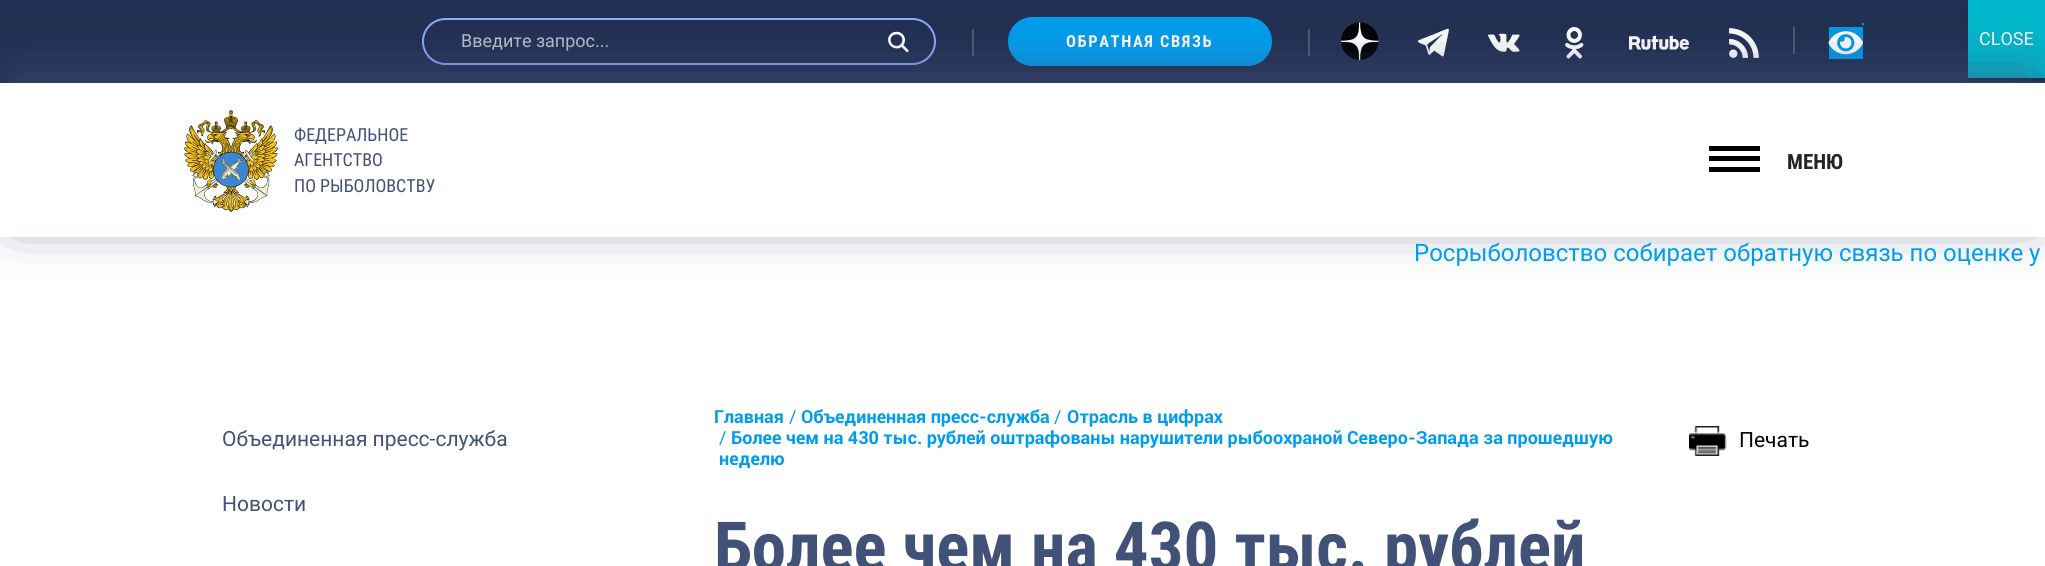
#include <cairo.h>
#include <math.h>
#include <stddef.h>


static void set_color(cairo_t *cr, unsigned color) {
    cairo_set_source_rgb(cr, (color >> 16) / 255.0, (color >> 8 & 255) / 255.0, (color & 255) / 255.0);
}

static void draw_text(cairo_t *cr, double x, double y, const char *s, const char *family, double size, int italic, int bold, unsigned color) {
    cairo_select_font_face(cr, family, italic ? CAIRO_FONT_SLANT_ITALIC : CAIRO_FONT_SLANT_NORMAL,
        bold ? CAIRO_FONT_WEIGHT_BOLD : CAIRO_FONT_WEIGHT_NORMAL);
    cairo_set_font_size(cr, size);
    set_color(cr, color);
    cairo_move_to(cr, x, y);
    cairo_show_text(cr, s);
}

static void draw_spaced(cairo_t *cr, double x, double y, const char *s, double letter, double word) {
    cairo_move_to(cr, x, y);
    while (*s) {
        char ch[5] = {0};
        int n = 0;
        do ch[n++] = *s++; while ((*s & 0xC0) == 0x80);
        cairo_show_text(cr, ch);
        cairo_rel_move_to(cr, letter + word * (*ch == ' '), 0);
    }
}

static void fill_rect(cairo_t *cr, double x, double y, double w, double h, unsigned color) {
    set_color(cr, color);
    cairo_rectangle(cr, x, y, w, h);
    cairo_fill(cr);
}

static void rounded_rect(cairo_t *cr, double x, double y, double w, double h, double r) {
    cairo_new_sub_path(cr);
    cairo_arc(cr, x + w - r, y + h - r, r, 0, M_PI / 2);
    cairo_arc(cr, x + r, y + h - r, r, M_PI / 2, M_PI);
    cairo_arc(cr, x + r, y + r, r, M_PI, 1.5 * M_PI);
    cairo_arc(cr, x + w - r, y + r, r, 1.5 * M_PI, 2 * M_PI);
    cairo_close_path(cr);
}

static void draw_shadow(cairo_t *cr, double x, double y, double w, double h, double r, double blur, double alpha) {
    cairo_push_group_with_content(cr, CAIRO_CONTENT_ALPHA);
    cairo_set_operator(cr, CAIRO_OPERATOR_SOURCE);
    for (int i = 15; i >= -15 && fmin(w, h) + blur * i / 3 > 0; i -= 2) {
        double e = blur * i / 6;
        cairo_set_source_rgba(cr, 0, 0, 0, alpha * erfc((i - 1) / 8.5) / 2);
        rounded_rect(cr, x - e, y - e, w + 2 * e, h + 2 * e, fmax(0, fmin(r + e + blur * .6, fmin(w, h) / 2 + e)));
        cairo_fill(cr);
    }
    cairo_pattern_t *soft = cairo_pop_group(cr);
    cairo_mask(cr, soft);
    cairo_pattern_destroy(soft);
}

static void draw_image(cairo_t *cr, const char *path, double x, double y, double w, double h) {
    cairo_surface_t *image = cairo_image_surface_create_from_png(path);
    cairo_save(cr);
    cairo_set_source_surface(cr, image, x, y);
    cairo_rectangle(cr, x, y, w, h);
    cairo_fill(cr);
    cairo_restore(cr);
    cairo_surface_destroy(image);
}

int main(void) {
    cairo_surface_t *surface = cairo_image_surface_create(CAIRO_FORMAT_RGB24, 2045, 566);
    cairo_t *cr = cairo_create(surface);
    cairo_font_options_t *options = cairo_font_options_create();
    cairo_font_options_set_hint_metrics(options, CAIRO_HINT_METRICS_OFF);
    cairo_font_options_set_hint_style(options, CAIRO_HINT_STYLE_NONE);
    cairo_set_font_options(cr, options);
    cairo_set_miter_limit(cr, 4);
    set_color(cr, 0xFFFFFF);
    cairo_paint(cr);
    fill_rect(cr, 0, 0, 2045, 83, 0x212F52);
    set_color(cr, 0x020202);
    draw_shadow(cr, 1970, 2, 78, 78, 0, 2, 0.23);
    draw_shadow(cr, 1970, 2, 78, 78, 0, 2, 0.23);
    fill_rect(cr, 1968, 0, 77, 78, 0x00B7CD);
    draw_text(cr, 1979, 45, "CLOSE", "Roboto", 18, 0, 0, 0xFFFFFF);
    rounded_rect(cr, 423, 19, 512, 45, 22.5);
    set_color(cr, 0x89AAFF);
    cairo_stroke(cr);
    draw_text(cr, 461, 47, "Введите запрос...", "Roboto", 18, 0, 0, 0xBCC1CB);
    draw_image(cr, "assets/img1.png", 888, 31, 21, 22);
    fill_rect(cr, 972, 29, 2, 27, 0x4D5975);
    set_color(cr, 0x009DEC);
    rounded_rect(cr, 1009.5, 18.5, 261, 46, 23);
    cairo_fill_preserve(cr);
    cairo_set_line_width(cr, 3);
    cairo_stroke(cr);
    cairo_select_font_face(cr, "Roboto Condensed", CAIRO_FONT_SLANT_NORMAL, CAIRO_FONT_WEIGHT_BOLD);
    cairo_set_font_size(cr, 16.5);
    set_color(cr, 0xFFFFFF);
    draw_spaced(cr, 1066, 47, "ОБРАТНАЯ СВЯЗЬ", 1.6, 0);
    fill_rect(cr, 1308, 29, 2, 27, 0x4D5975);
    draw_image(cr, "assets/img2.png", 1341, 22, 38, 38);
    draw_image(cr, "assets/img3.png", 1417, 28, 32, 29);
    draw_image(cr, "assets/img4.png", 1488, 33, 32, 19);
    draw_image(cr, "assets/img5.png", 1565, 27, 19, 32);
    draw_image(cr, "assets/img6.png", 1629, 35, 60, 15);
    draw_image(cr, "assets/img7.png", 1729, 28, 30, 30);
    fill_rect(cr, 1793, 27, 2, 27, 0x4D5975);
    fill_rect(cr, 1829, 27, 34, 32, 0x0299E7);
    fill_rect(cr, 1862, 23, 2, 2, 0x0299E7);
    draw_image(cr, "assets/img8.png", 1828, 31, 35, 24);
    set_color(cr, 0x425177);
    draw_shadow(cr, 17, 87, 2013, 122, 0, 30, 1);
    fill_rect(cr, 0, 83, 2045, 154, 0xFFFFFF);
    draw_image(cr, "assets/img9.png", 184, 110, 94, 102);
    draw_text(cr, 294, 141, "ФЕДЕРАЛЬНОЕ", "Roboto Condensed", 18, 0, 0, 0x425177);
    draw_text(cr, 294, 166, "АГЕНТСТВО", "Roboto Condensed", 18, 0, 0, 0x425177);
    draw_text(cr, 294, 192, "ПО РЫБОЛОВСТВУ", "Roboto Condensed", 18, 0, 0, 0x425177);
    fill_rect(cr, 1709, 146, 51, 5, 0x000000);
    fill_rect(cr, 1709, 156, 51, 5, 0x000000);
    fill_rect(cr, 1709, 167, 51, 5, 0x000000);
    draw_text(cr, 1787, 169, "МЕНЮ", "Roboto Condensed", 21, 0, 1, 0x212529);
    draw_text(cr, 1414, 261, "Росрыболовство собирает обратную связь по оценке у", "Roboto", 24, 0, 0, 0x009DEC);
    draw_text(cr, 222, 446, "Объединенная пресс-служба", "Roboto", 21, 0, 0, 0x425177);
    draw_text(cr, 222, 511, "Новости", "Roboto", 21, 0, 0, 0x425177);
    draw_text(cr, 714, 423, "Главная", "Roboto", 18, 0, 1, 0x009DEC);
    draw_text(cr, 789, 423, "/", "Roboto", 18, 0, 0, 0x009DEC);
    draw_text(cr, 801, 423, "Объединенная пресс-служба", "Roboto", 18, 0, 1, 0x009DEC);
    draw_text(cr, 1054, 423, "/", "Roboto", 18, 0, 0, 0x009DEC);
    draw_text(cr, 1067, 423, "Отрасль в цифрах", "Roboto", 18, 0, 1, 0x009DEC);
    draw_text(cr, 719, 444, "/", "Roboto", 18, 0, 0, 0x009DEC);
    draw_text(cr, 731, 444, "Более чем на 430 тыс. рублей оштрафованы нарушители рыбоохраной Северо-Запада за прошедшую", "Roboto", 18, 0, 1, 0x009DEC);
    draw_text(cr, 719, 465, "неделю", "Roboto", 18, 0, 1, 0x009DEC);
    draw_image(cr, "assets/img10.png", 1689, 426, 38, 30);
    draw_text(cr, 1739, 447, "Печать", "Roboto", 21, 0, 0, 0x000000);
    draw_text(cr, 714, 571, "Более чем на 430 тыс. рублей", "Roboto Condensed", 69, 0, 1, 0x425177);
    cairo_surface_write_to_png(surface, "output.png");
    cairo_font_options_destroy(options);
    cairo_destroy(cr);
    cairo_surface_destroy(surface);
    return 0;
}
